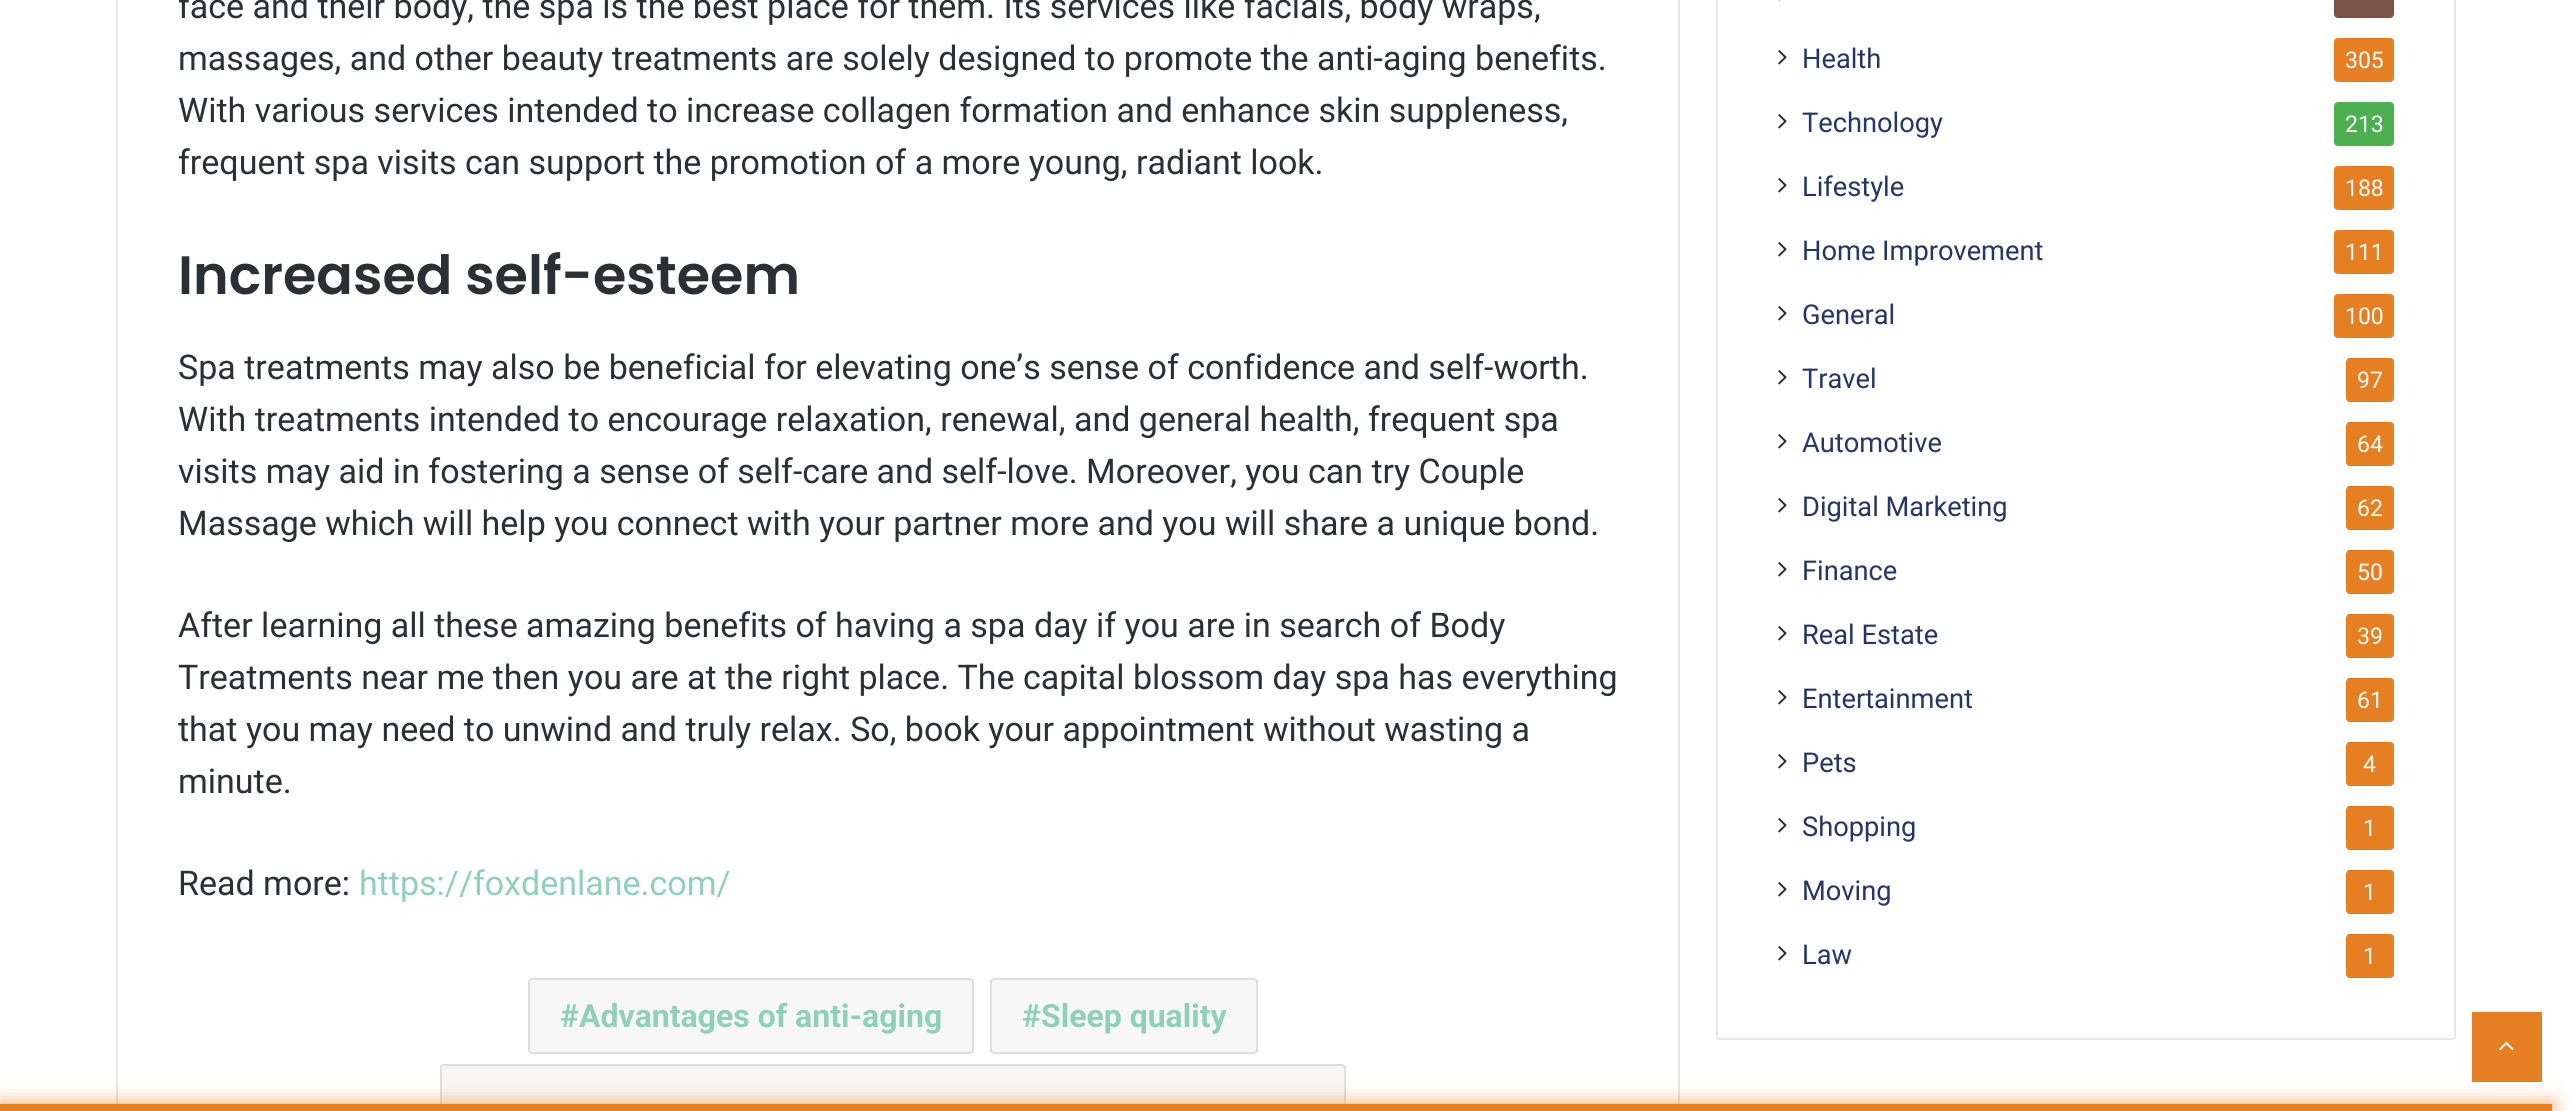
#include <cairo.h>
#include <math.h>
#include <stddef.h>


static void set_color(cairo_t *cr, unsigned color) {
    cairo_set_source_rgb(cr, (color >> 16) / 255.0, (color >> 8 & 255) / 255.0, (color & 255) / 255.0);
}

static void draw_text(cairo_t *cr, double x, double y, const char *s, const char *family, double size, int italic, int bold, unsigned color) {
    cairo_select_font_face(cr, family, italic ? CAIRO_FONT_SLANT_ITALIC : CAIRO_FONT_SLANT_NORMAL,
        bold ? CAIRO_FONT_WEIGHT_BOLD : CAIRO_FONT_WEIGHT_NORMAL);
    cairo_set_font_size(cr, size);
    set_color(cr, color);
    cairo_move_to(cr, x, y);
    cairo_show_text(cr, s);
}

static void fill_rect(cairo_t *cr, double x, double y, double w, double h, unsigned color) {
    set_color(cr, color);
    cairo_rectangle(cr, x, y, w, h);
    cairo_fill(cr);
}

static void rounded_rect(cairo_t *cr, double x, double y, double w, double h, double r) {
    cairo_new_sub_path(cr);
    cairo_arc(cr, x + w - r, y + h - r, r, 0, M_PI / 2);
    cairo_arc(cr, x + r, y + h - r, r, M_PI / 2, M_PI);
    cairo_arc(cr, x + r, y + r, r, M_PI, 1.5 * M_PI);
    cairo_arc(cr, x + w - r, y + r, r, 1.5 * M_PI, 2 * M_PI);
    cairo_close_path(cr);
}

static void draw_shadow(cairo_t *cr, double x, double y, double w, double h, double r, double blur, double alpha) {
    cairo_push_group_with_content(cr, CAIRO_CONTENT_ALPHA);
    cairo_set_operator(cr, CAIRO_OPERATOR_SOURCE);
    for (int i = 15; i >= -15 && fmin(w, h) + blur * i / 3 > 0; i -= 2) {
        double e = blur * i / 6;
        cairo_set_source_rgba(cr, 0, 0, 0, alpha * erfc((i - 1) / 8.5) / 2);
        rounded_rect(cr, x - e, y - e, w + 2 * e, h + 2 * e, fmax(0, fmin(r + e + blur * .6, fmin(w, h) / 2 + e)));
        cairo_fill(cr);
    }
    cairo_pattern_t *soft = cairo_pop_group(cr);
    cairo_mask(cr, soft);
    cairo_pattern_destroy(soft);
}

static void draw_image(cairo_t *cr, const char *path, double x, double y, double w, double h) {
    cairo_surface_t *image = cairo_image_surface_create_from_png(path);
    cairo_save(cr);
    cairo_set_source_surface(cr, image, x, y);
    cairo_rectangle(cr, x, y, w, h);
    cairo_fill(cr);
    cairo_restore(cr);
    cairo_surface_destroy(image);
}

int main(void) {
    cairo_surface_t *surface = cairo_image_surface_create(CAIRO_FORMAT_RGB24, 2572, 1111);
    cairo_t *cr = cairo_create(surface);
    cairo_font_options_t *options = cairo_font_options_create();
    cairo_font_options_set_hint_metrics(options, CAIRO_HINT_METRICS_OFF);
    cairo_font_options_set_hint_style(options, CAIRO_HINT_STYLE_NONE);
    cairo_set_font_options(cr, options);
    cairo_set_miter_limit(cr, 4);
    set_color(cr, 0xFFFFFF);
    cairo_paint(cr);
    cairo_rectangle(cr, 117, -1, 1562, 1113);
    set_color(cr, 0xE6E6E6);
    cairo_stroke(cr);
    draw_text(cr, 178, 18, "face and their body, the spa is the best place for them. Its services like facials, body wraps,", "Roboto", 34, 0, 0, 0x2C2F34);
    draw_text(cr, 178, 70, "massages, and other beauty treatments are solely designed to promote the anti-aging benefits.", "Roboto", 34, 0, 0, 0x2C2F34);
    draw_text(cr, 178, 122, "With various services intended to increase collagen formation and enhance skin suppleness,", "Roboto", 34, 0, 0, 0x2C2F34);
    draw_text(cr, 178, 174, "frequent spa visits can support the promotion of a more young, radiant look.", "Roboto", 34, 0, 0, 0x2C2F34);
    draw_text(cr, 178, 294, "Increased self-esteem", "Poppins SemiBold", 54, 0, 0, 0x2C2F34);
    draw_text(cr, 178, 379, "Spa treatments may also be beneficial for elevating one’s sense of confidence and self-worth.", "Roboto", 34, 0, 0, 0x2C2F34);
    draw_text(cr, 178, 431, "With treatments intended to encourage relaxation, renewal, and general health, frequent spa", "Roboto", 34, 0, 0, 0x2C2F34);
    draw_text(cr, 178, 483, "visits may aid in fostering a sense of self-care and self-love. Moreover, you can try Couple", "Roboto", 34, 0, 0, 0x2C2F34);
    draw_text(cr, 178, 535, "Massage which will help you connect with your partner more and you will share a unique bond.", "Roboto", 34, 0, 0, 0x2C2F34);
    draw_text(cr, 178, 637, "After learning all these amazing benefits of having a spa day if you are in search of Body", "Roboto", 34, 0, 0, 0x2C2F34);
    draw_text(cr, 178, 689, "Treatments near me then you are at the right place. The capital blossom day spa has everything", "Roboto", 34, 0, 0, 0x2C2F34);
    draw_text(cr, 178, 741, "that you may need to unwind and truly relax. So, book your appointment without wasting a", "Roboto", 34, 0, 0, 0x2C2F34);
    draw_text(cr, 178, 793, "minute.", "Roboto", 34, 0, 0, 0x2C2F34);
    draw_text(cr, 178, 895, "Read more:", "Roboto", 34, 0, 0, 0x2C2F34);
    draw_text(cr, 359, 895, "https://foxdenlane.com/", "Roboto", 34, 0, 0, 0x8FD0BA);
    set_color(cr, 0xF7F7F7);
    rounded_rect(cr, 528, 978, 446, 76, 4);
    cairo_fill(cr);
    rounded_rect(cr, 529, 979, 444, 74, 3);
    cairo_set_source_rgba(cr, 0, 0, 0, 0.1);
    cairo_stroke(cr);
    draw_text(cr, 560, 1027, "#Advantages of anti-aging", "Roboto", 32, 0, 1, 0x8FD0BA);
    set_color(cr, 0xF7F7F7);
    rounded_rect(cr, 990, 978, 268, 76, 4);
    cairo_fill(cr);
    rounded_rect(cr, 991, 979, 266, 74, 3);
    cairo_set_source_rgba(cr, 0, 0, 0, 0.1);
    cairo_stroke(cr);
    draw_text(cr, 1022, 1027, "#Sleep quality", "Roboto", 32, 0, 1, 0x8FD0BA);
    set_color(cr, 0xF7F7F7);
    rounded_rect(cr, 440, 1064, 906, 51, 4);
    cairo_fill(cr);
    rounded_rect(cr, 441, 1065, 904, 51, 3);
    cairo_set_source_rgba(cr, 0, 0, 0, 0.1);
    cairo_stroke(cr);
    rounded_rect(cr, 1717, -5, 738, 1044, 3);
    set_color(cr, 0xE6E6E6);
    cairo_stroke(cr);
    draw_image(cr, "assets/img1.png", 1778, 0, 2, 1);
    set_color(cr, 0x795548);
    rounded_rect(cr, 2334, -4, 60, 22, 4);
    cairo_fill(cr);
    draw_image(cr, "assets/img2.png", 1778, 50, 9, 15);
    draw_text(cr, 1802, 68, "Health", "Roboto", 27.25, 0, 0, 0x243665);
    set_color(cr, 0xE67E22);
    rounded_rect(cr, 2334, 38, 60, 44, 4);
    cairo_fill(cr);
    draw_text(cr, 2345, 68, "305", "Roboto", 23, 0, 0, 0xFFFFFF);
    draw_image(cr, "assets/img2.png", 1778, 114, 9, 15);
    draw_text(cr, 1802, 132, "Technology", "Roboto", 27.25, 0, 0, 0x243665);
    set_color(cr, 0x4CAF50);
    rounded_rect(cr, 2334, 102, 60, 44, 4);
    cairo_fill(cr);
    draw_text(cr, 2345, 132, "213", "Roboto", 23, 0, 0, 0xFFFFFF);
    draw_image(cr, "assets/img2.png", 1778, 178, 9, 15);
    draw_text(cr, 1802, 196, "Lifestyle", "Roboto", 27.25, 0, 0, 0x243665);
    set_color(cr, 0xE67E22);
    rounded_rect(cr, 2334, 166, 60, 44, 4);
    cairo_fill(cr);
    draw_text(cr, 2345, 196, "188", "Roboto", 23, 0, 0, 0xFFFFFF);
    draw_image(cr, "assets/img2.png", 1778, 242, 9, 15);
    draw_text(cr, 1802, 260, "Home Improvement", "Roboto", 27.25, 0, 0, 0x243665);
    set_color(cr, 0xE67E22);
    rounded_rect(cr, 2334, 230, 60, 44, 4);
    cairo_fill(cr);
    draw_text(cr, 2345, 260, "111", "Roboto", 23, 0, 0, 0xFFFFFF);
    draw_image(cr, "assets/img2.png", 1778, 306, 9, 15);
    draw_text(cr, 1802, 324, "General", "Roboto", 27.25, 0, 0, 0x243665);
    set_color(cr, 0xE67E22);
    rounded_rect(cr, 2334, 294, 60, 44, 4);
    cairo_fill(cr);
    draw_text(cr, 2345, 324, "100", "Roboto", 23, 0, 0, 0xFFFFFF);
    draw_image(cr, "assets/img2.png", 1778, 370, 9, 15);
    draw_text(cr, 1802, 388, "Travel", "Roboto", 27.25, 0, 0, 0x243665);
    set_color(cr, 0xE67E22);
    rounded_rect(cr, 2346, 358, 48, 44, 4);
    cairo_fill(cr);
    draw_text(cr, 2357, 388, "97", "Roboto", 23, 0, 0, 0xFFFFFF);
    draw_image(cr, "assets/img2.png", 1778, 434, 9, 15);
    draw_text(cr, 1802, 452, "Automotive", "Roboto", 27.25, 0, 0, 0x243665);
    set_color(cr, 0xE67E22);
    rounded_rect(cr, 2346, 422, 48, 44, 4);
    cairo_fill(cr);
    draw_text(cr, 2357, 452, "64", "Roboto", 23, 0, 0, 0xFFFFFF);
    draw_image(cr, "assets/img2.png", 1778, 498, 9, 15);
    draw_text(cr, 1802, 516, "Digital Marketing", "Roboto", 27.25, 0, 0, 0x243665);
    set_color(cr, 0xE67E22);
    rounded_rect(cr, 2346, 486, 48, 44, 4);
    cairo_fill(cr);
    draw_text(cr, 2357, 516, "62", "Roboto", 23, 0, 0, 0xFFFFFF);
    draw_image(cr, "assets/img2.png", 1778, 562, 9, 15);
    draw_text(cr, 1802, 580, "Finance", "Roboto", 27.25, 0, 0, 0x243665);
    set_color(cr, 0xE67E22);
    rounded_rect(cr, 2346, 550, 48, 44, 4);
    cairo_fill(cr);
    draw_text(cr, 2357, 580, "50", "Roboto", 23, 0, 0, 0xFFFFFF);
    draw_image(cr, "assets/img2.png", 1778, 626, 9, 15);
    draw_text(cr, 1802, 644, "Real Estate", "Roboto", 27.25, 0, 0, 0x243665);
    set_color(cr, 0xE67E22);
    rounded_rect(cr, 2346, 614, 48, 44, 4);
    cairo_fill(cr);
    draw_text(cr, 2357, 644, "39", "Roboto", 23, 0, 0, 0xFFFFFF);
    draw_image(cr, "assets/img2.png", 1778, 690, 9, 15);
    draw_text(cr, 1802, 708, "Entertainment", "Roboto", 27.25, 0, 0, 0x243665);
    set_color(cr, 0xE67E22);
    rounded_rect(cr, 2346, 678, 48, 44, 4);
    cairo_fill(cr);
    draw_text(cr, 2357, 708, "61", "Roboto", 23, 0, 0, 0xFFFFFF);
    draw_image(cr, "assets/img2.png", 1778, 754, 9, 15);
    draw_text(cr, 1802, 772, "Pets", "Roboto", 27.25, 0, 0, 0x243665);
    set_color(cr, 0xE67E22);
    rounded_rect(cr, 2346, 742, 48, 44, 4);
    cairo_fill(cr);
    draw_text(cr, 2363, 772, "4", "Roboto", 23, 0, 0, 0xFFFFFF);
    draw_image(cr, "assets/img2.png", 1778, 818, 9, 15);
    draw_text(cr, 1802, 836, "Shopping", "Roboto", 27.25, 0, 0, 0x243665);
    set_color(cr, 0xE67E22);
    rounded_rect(cr, 2346, 806, 48, 44, 4);
    cairo_fill(cr);
    draw_text(cr, 2363, 836, "1", "Roboto", 23, 0, 0, 0xFFFFFF);
    draw_image(cr, "assets/img2.png", 1778, 882, 9, 15);
    draw_text(cr, 1802, 900, "Moving", "Roboto", 27.25, 0, 0, 0x243665);
    set_color(cr, 0xE67E22);
    rounded_rect(cr, 2346, 870, 48, 44, 4);
    cairo_fill(cr);
    draw_text(cr, 2363, 900, "1", "Roboto", 23, 0, 0, 0xFFFFFF);
    draw_image(cr, "assets/img2.png", 1778, 946, 9, 15);
    draw_text(cr, 1802, 964, "Law", "Roboto", 27.25, 0, 0, 0x243665);
    set_color(cr, 0xE67E22);
    rounded_rect(cr, 2346, 934, 48, 44, 4);
    cairo_fill(cr);
    draw_text(cr, 2363, 964, "1", "Roboto", 23, 0, 0, 0xFFFFFF);
    fill_rect(cr, 2472, 1012, 70, 70, 0xE67E22);
    draw_image(cr, "assets/img3.png", 2499, 1041, 15, 10);
    set_color(cr, 0xE67E22);
    draw_shadow(cr, 0, 1104, 2552, 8, 0, 10, 0.7);
    fill_rect(cr, 0, 1104, 2552, 7, 0xE67E22);
    cairo_surface_write_to_png(surface, "output.png");
    cairo_font_options_destroy(options);
    cairo_destroy(cr);
    cairo_surface_destroy(surface);
    return 0;
}
